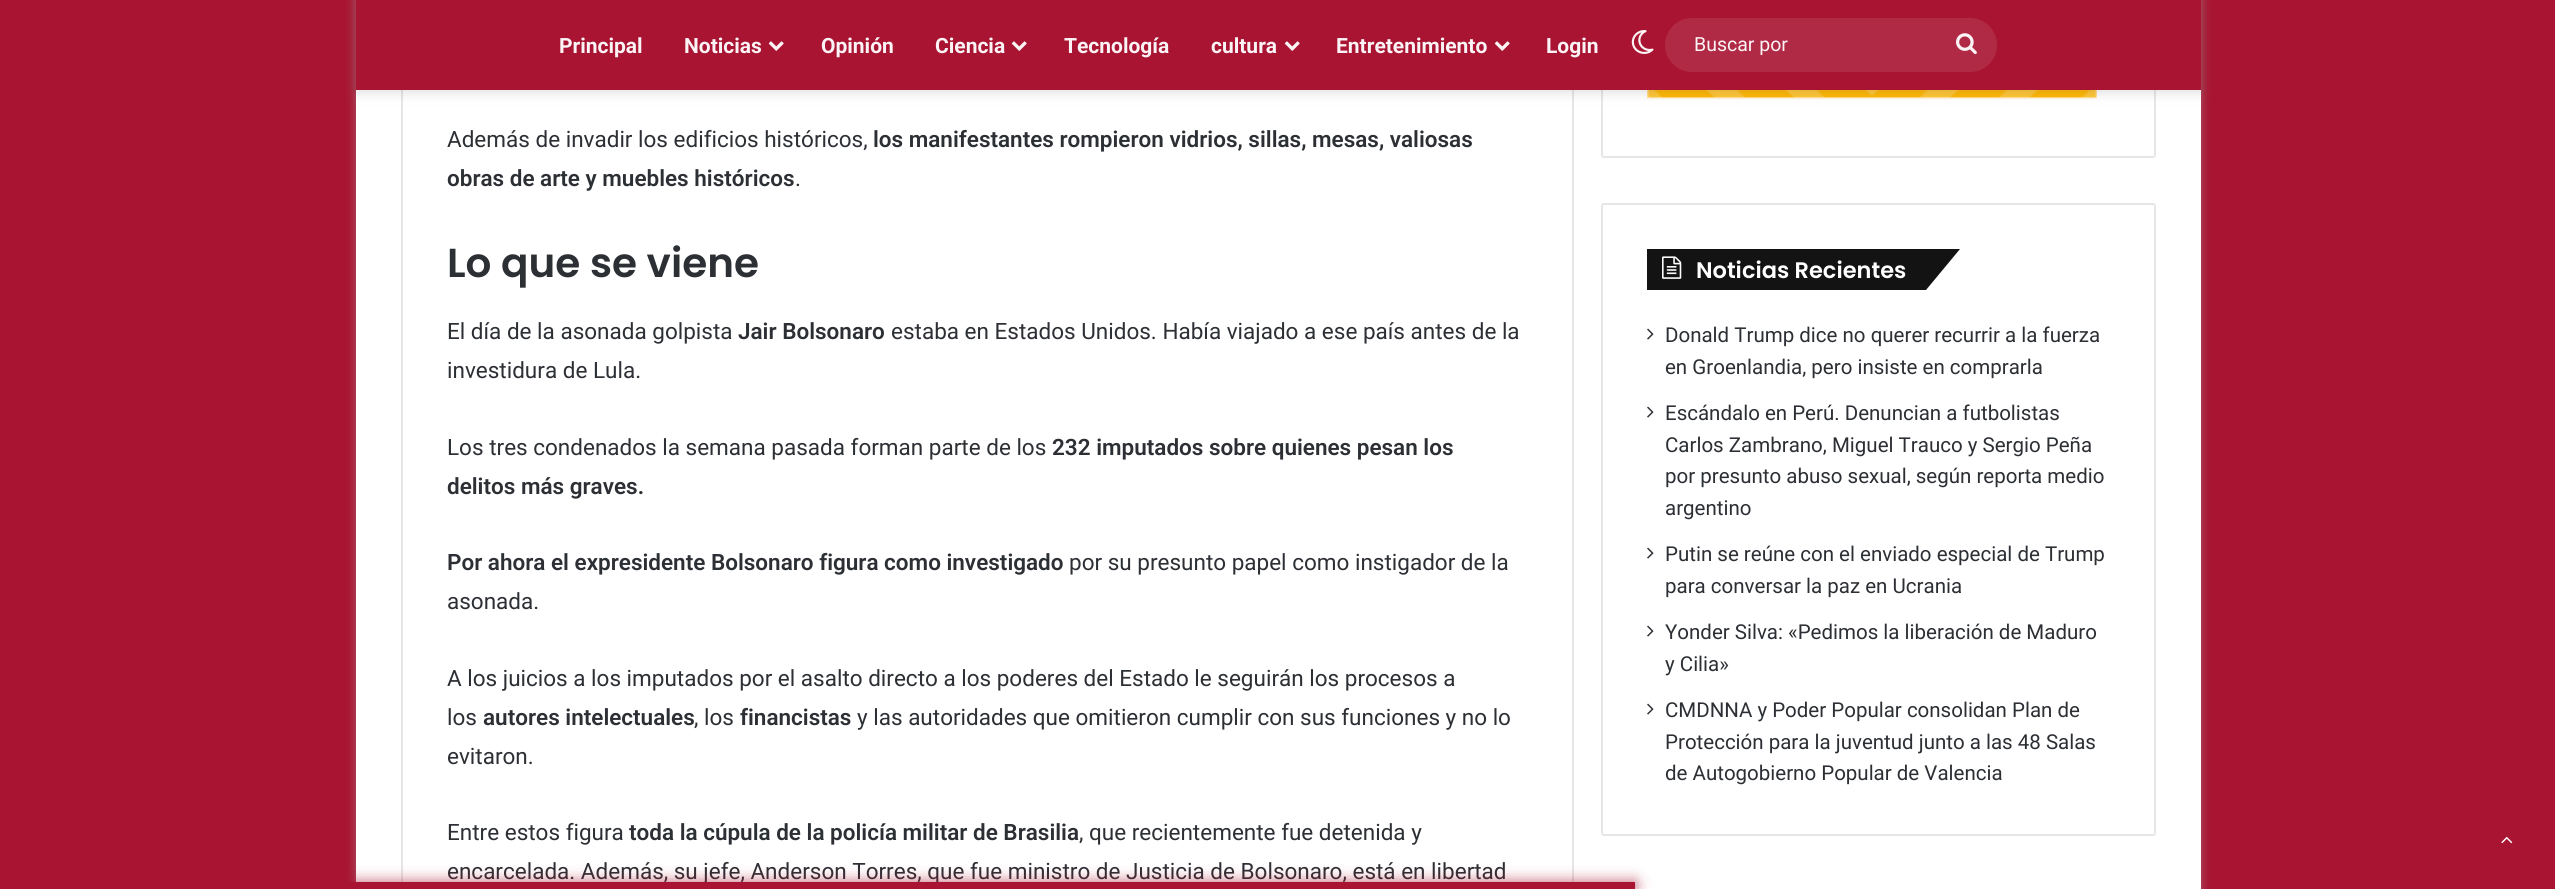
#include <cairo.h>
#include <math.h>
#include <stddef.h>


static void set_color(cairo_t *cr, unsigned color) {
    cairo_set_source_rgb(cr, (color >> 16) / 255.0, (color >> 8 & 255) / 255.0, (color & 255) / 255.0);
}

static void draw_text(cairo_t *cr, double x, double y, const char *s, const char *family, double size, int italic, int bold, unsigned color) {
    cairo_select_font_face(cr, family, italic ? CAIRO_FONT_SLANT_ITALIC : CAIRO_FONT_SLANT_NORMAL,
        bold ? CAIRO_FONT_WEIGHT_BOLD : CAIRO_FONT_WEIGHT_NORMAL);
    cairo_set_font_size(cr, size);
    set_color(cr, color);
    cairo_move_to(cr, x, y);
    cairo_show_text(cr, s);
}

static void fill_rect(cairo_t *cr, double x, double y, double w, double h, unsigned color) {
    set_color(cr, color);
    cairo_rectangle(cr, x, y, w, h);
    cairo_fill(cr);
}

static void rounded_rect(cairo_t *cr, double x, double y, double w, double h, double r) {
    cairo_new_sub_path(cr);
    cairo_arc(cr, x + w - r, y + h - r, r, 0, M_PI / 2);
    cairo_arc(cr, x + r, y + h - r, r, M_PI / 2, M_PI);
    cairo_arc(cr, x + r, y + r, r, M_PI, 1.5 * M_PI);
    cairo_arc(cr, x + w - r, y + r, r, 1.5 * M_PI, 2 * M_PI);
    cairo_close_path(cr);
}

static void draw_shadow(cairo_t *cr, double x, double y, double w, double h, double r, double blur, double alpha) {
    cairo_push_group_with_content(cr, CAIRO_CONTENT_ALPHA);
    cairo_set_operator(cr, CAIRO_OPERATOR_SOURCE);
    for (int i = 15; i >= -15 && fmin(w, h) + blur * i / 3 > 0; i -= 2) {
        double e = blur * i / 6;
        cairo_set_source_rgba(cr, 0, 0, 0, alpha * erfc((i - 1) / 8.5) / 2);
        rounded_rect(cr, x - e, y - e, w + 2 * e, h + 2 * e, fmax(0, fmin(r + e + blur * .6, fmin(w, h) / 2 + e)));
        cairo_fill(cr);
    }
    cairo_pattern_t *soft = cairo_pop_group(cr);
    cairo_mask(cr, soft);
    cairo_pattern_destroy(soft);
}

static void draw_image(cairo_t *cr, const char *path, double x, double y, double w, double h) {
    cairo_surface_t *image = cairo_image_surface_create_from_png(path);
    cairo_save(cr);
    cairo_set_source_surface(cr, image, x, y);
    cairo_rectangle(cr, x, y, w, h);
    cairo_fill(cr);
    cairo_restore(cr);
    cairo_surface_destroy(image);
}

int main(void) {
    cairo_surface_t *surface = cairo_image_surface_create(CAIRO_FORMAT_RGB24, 2555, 889);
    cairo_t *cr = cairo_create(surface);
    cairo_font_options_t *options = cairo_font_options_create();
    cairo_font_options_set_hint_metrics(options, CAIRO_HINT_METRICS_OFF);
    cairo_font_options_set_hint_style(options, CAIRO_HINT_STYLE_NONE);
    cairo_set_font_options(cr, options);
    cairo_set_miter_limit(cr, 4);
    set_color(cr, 0xA81431);
    cairo_paint(cr);
    set_color(cr, 0xABABAB);
    draw_shadow(cr, 356, -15, 1845, 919, 0, 5, 0.5);
    fill_rect(cr, 356, 90, 1845, 799, 0xFFFFFF);
    cairo_rectangle(cr, 402, -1, 1171, 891);
    set_color(cr, 0xE6E6E6);
    cairo_stroke(cr);
    rounded_rect(cr, 1602, -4, 553, 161, 2);
    cairo_stroke(cr);
    draw_image(cr, "assets/img4.png", 1647, 90, 450, 9);
    set_color(cr, 0x636363);
    draw_shadow(cr, 356, 3, 1845, 90, 0, 6, 0.2);
    fill_rect(cr, 356, 0, 1845, 90, 0xA81431);
    draw_text(cr, 559, 53, "Principal", "Roboto", 21, 0, 1, 0xFBF3F5);
    draw_text(cr, 684, 53, "Noticias", "Roboto", 21, 0, 1, 0xFBF3F5);
    draw_image(cr, "assets/img1.png", 768, 41, 16, 10);
    draw_text(cr, 821, 53, "Opinión", "Roboto", 21, 0, 1, 0xFBF3F5);
    draw_text(cr, 935, 53, "Ciencia", "Roboto", 21, 0, 1, 0xFBF3F5);
    draw_image(cr, "assets/img1.png", 1011, 41, 16, 10);
    draw_text(cr, 1064, 53, "Tecnología", "Roboto", 21, 0, 1, 0xFBF3F5);
    draw_text(cr, 1211, 53, "cultura", "Roboto", 21, 0, 1, 0xFBF3F5);
    draw_image(cr, "assets/img1.png", 1284, 41, 16, 10);
    draw_text(cr, 1336, 53, "Entretenimiento", "Roboto", 21, 0, 1, 0xFBF3F5);
    draw_image(cr, "assets/img1.png", 1494, 41, 16, 10);
    draw_text(cr, 1546, 53, "Login", "Roboto", 21, 0, 1, 0xFBF3F5);
    draw_image(cr, "assets/img2.png", 1631, 30, 23, 24);
    set_color(cr, 0xB02A45);
    rounded_rect(cr, 1665, 18, 332, 54, 27);
    cairo_fill(cr);
    draw_text(cr, 1694, 51, "Buscar por", "Roboto", 19.5, 0, 0, 0xFBF3F5);
    draw_image(cr, "assets/img3.png", 1956, 33, 21, 22);
    draw_text(cr, 447, 147, "Además de invadir los edificios históricos,", "Roboto", 22.5, 0, 0, 0x2C2F34);
    draw_text(cr, 873, 147, "los manifestantes rompieron vidrios, sillas, mesas, valiosas", "Roboto SemiBold", 22.5, 0, 0, 0x2C2F34);
    draw_text(cr, 447, 186, "obras de arte y muebles históricos", "Roboto SemiBold", 22.5, 0, 0, 0x2C2F34);
    draw_text(cr, 795, 186, ".", "Roboto", 22.5, 0, 0, 0x2C2F34);
    draw_text(cr, 447, 277, "Lo que se viene", "Poppins SemiBold", 40.5, 0, 0, 0x2C2F34);
    draw_text(cr, 447, 339, "El día de la asonada golpista", "Roboto", 22.5, 0, 0, 0x2C2F34);
    draw_text(cr, 738, 339, "Jair Bolsonaro", "Roboto SemiBold", 22.5, 0, 0, 0x2C2F34);
    draw_text(cr, 891, 339, "estaba en Estados Unidos. Había viajado a ese país antes de la", "Roboto", 22.5, 0, 0, 0x2C2F34);
    draw_text(cr, 447, 378, "investidura de Lula.", "Roboto", 22.5, 0, 0, 0x2C2F34);
    draw_text(cr, 447, 455, "Los tres condenados la semana pasada forman parte de los", "Roboto", 22.5, 0, 0, 0x2C2F34);
    draw_text(cr, 1052, 455, "232 imputados sobre quienes pesan los", "Roboto SemiBold", 22.5, 0, 0, 0x2C2F34);
    draw_text(cr, 447, 494, "delitos más graves.", "Roboto SemiBold", 22.5, 0, 0, 0x2C2F34);
    draw_text(cr, 447, 570, "Por ahora el expresidente Bolsonaro figura como investigado", "Roboto SemiBold", 22.5, 0, 0, 0x2C2F34);
    draw_text(cr, 1069, 570, "por su presunto papel como instigador de la", "Roboto", 22.5, 0, 0, 0x2C2F34);
    draw_text(cr, 447, 609, "asonada.", "Roboto", 22.5, 0, 0, 0x2C2F34);
    draw_text(cr, 447, 686, "A los juicios a los imputados por el asalto directo a los poderes del Estado le seguirán los procesos a", "Roboto", 22.5, 0, 0, 0x2C2F34);
    draw_text(cr, 447, 725, "los", "Roboto", 22.5, 0, 0, 0x2C2F34);
    draw_text(cr, 483, 725, "autores intelectuales", "Roboto SemiBold", 22.5, 0, 0, 0x2C2F34);
    draw_text(cr, 694, 725, ", los", "Roboto", 22.5, 0, 0, 0x2C2F34);
    draw_text(cr, 740, 725, "financistas", "Roboto SemiBold", 22.5, 0, 0, 0x2C2F34);
    draw_text(cr, 857, 725, "y las autoridades que omitieron cumplir con sus funciones y no lo", "Roboto", 22.5, 0, 0, 0x2C2F34);
    draw_text(cr, 447, 764, "evitaron.", "Roboto", 22.5, 0, 0, 0x2C2F34);
    draw_text(cr, 447, 840, "Entre estos figura", "Roboto", 22.5, 0, 0, 0x2C2F34);
    draw_text(cr, 629, 840, "toda la cúpula de la policía militar de Brasilia", "Roboto SemiBold", 22.5, 0, 0, 0x2C2F34);
    draw_text(cr, 1079, 840, ", que recientemente fue detenida y", "Roboto", 22.5, 0, 0, 0x2C2F34);
    draw_text(cr, 447, 879, "encarcelada. Además, su jefe, Anderson Torres, que fue ministro de Justicia de Bolsonaro, está en libertad", "Roboto", 22.5, 0, 0, 0x2C2F34);
    rounded_rect(cr, 1602, 204, 553, 631, 2);
    set_color(cr, 0xE6E6E6);
    cairo_stroke(cr);
    fill_rect(cr, 1647, 249, 120, 41, 0x131313);
    cairo_new_path(cr);
    cairo_move_to(cr, 1767, 249);
    cairo_line_to(cr, 1960, 249);
    cairo_line_to(cr, 1926, 290);
    cairo_line_to(cr, 1733, 290);
    cairo_close_path(cr);
    cairo_fill(cr);
    draw_image(cr, "assets/img5.png", 1662, 256, 20, 23);
    draw_text(cr, 1696, 278, "Noticias Recientes", "Poppins SemiBold", 22.5, 0, 0, 0xFFFFFF);
    draw_image(cr, "assets/img6.png", 1647, 328, 7, 12);
    draw_text(cr, 1665, 342, "Donald Trump dice no querer recurrir a la fuerza", "Roboto", 20.5, 0, 0, 0x2C2F34);
    draw_text(cr, 1665, 374, "en Groenlandia, pero insiste en comprarla", "Roboto", 20.5, 0, 0, 0x2C2F34);
    draw_image(cr, "assets/img6.png", 1647, 406, 7, 12);
    draw_text(cr, 1665, 420, "Escándalo en Perú. Denuncian a futbolistas", "Roboto", 20.5, 0, 0, 0x2C2F34);
    draw_text(cr, 1665, 452, "Carlos Zambrano, Miguel Trauco y Sergio Peña", "Roboto", 20.5, 0, 0, 0x2C2F34);
    draw_text(cr, 1665, 483, "por presunto abuso sexual, según reporta medio", "Roboto", 20.5, 0, 0, 0x2C2F34);
    draw_text(cr, 1665, 515, "argentino", "Roboto", 20.5, 0, 0, 0x2C2F34);
    draw_image(cr, "assets/img6.png", 1647, 547, 7, 12);
    draw_text(cr, 1665, 561, "Putin se reúne con el enviado especial de Trump", "Roboto", 20.5, 0, 0, 0x2C2F34);
    draw_text(cr, 1665, 593, "para conversar la paz en Ucrania", "Roboto", 20.5, 0, 0, 0x2C2F34);
    draw_image(cr, "assets/img6.png", 1647, 625, 7, 12);
    draw_text(cr, 1665, 639, "Yonder Silva: «Pedimos la liberación de Maduro", "Roboto", 20.5, 0, 0, 0x2C2F34);
    draw_text(cr, 1665, 671, "y Cilia»", "Roboto", 20.5, 0, 0, 0x2C2F34);
    draw_image(cr, "assets/img6.png", 1647, 703, 7, 12);
    draw_text(cr, 1665, 717, "CMDNNA y Poder Popular consolidan Plan de", "Roboto", 20.5, 0, 0, 0x2C2F34);
    draw_text(cr, 1665, 749, "Protección para la juventud junto a las 48 Salas", "Roboto", 20.5, 0, 0, 0x2C2F34);
    draw_text(cr, 1665, 780, "de Autogobierno Popular de Valencia", "Roboto", 20.5, 0, 0, 0x2C2F34);
    draw_image(cr, "assets/img7.png", 2501, 836, 12, 8);
    set_color(cr, 0xA81431);
    draw_shadow(cr, 0, 882, 1635, 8, 0, 7.5, 0.7);
    fill_rect(cr, 348, 882, 1287, 7, 0xA81431);
    cairo_surface_write_to_png(surface, "output.png");
    cairo_font_options_destroy(options);
    cairo_destroy(cr);
    cairo_surface_destroy(surface);
    return 0;
}
